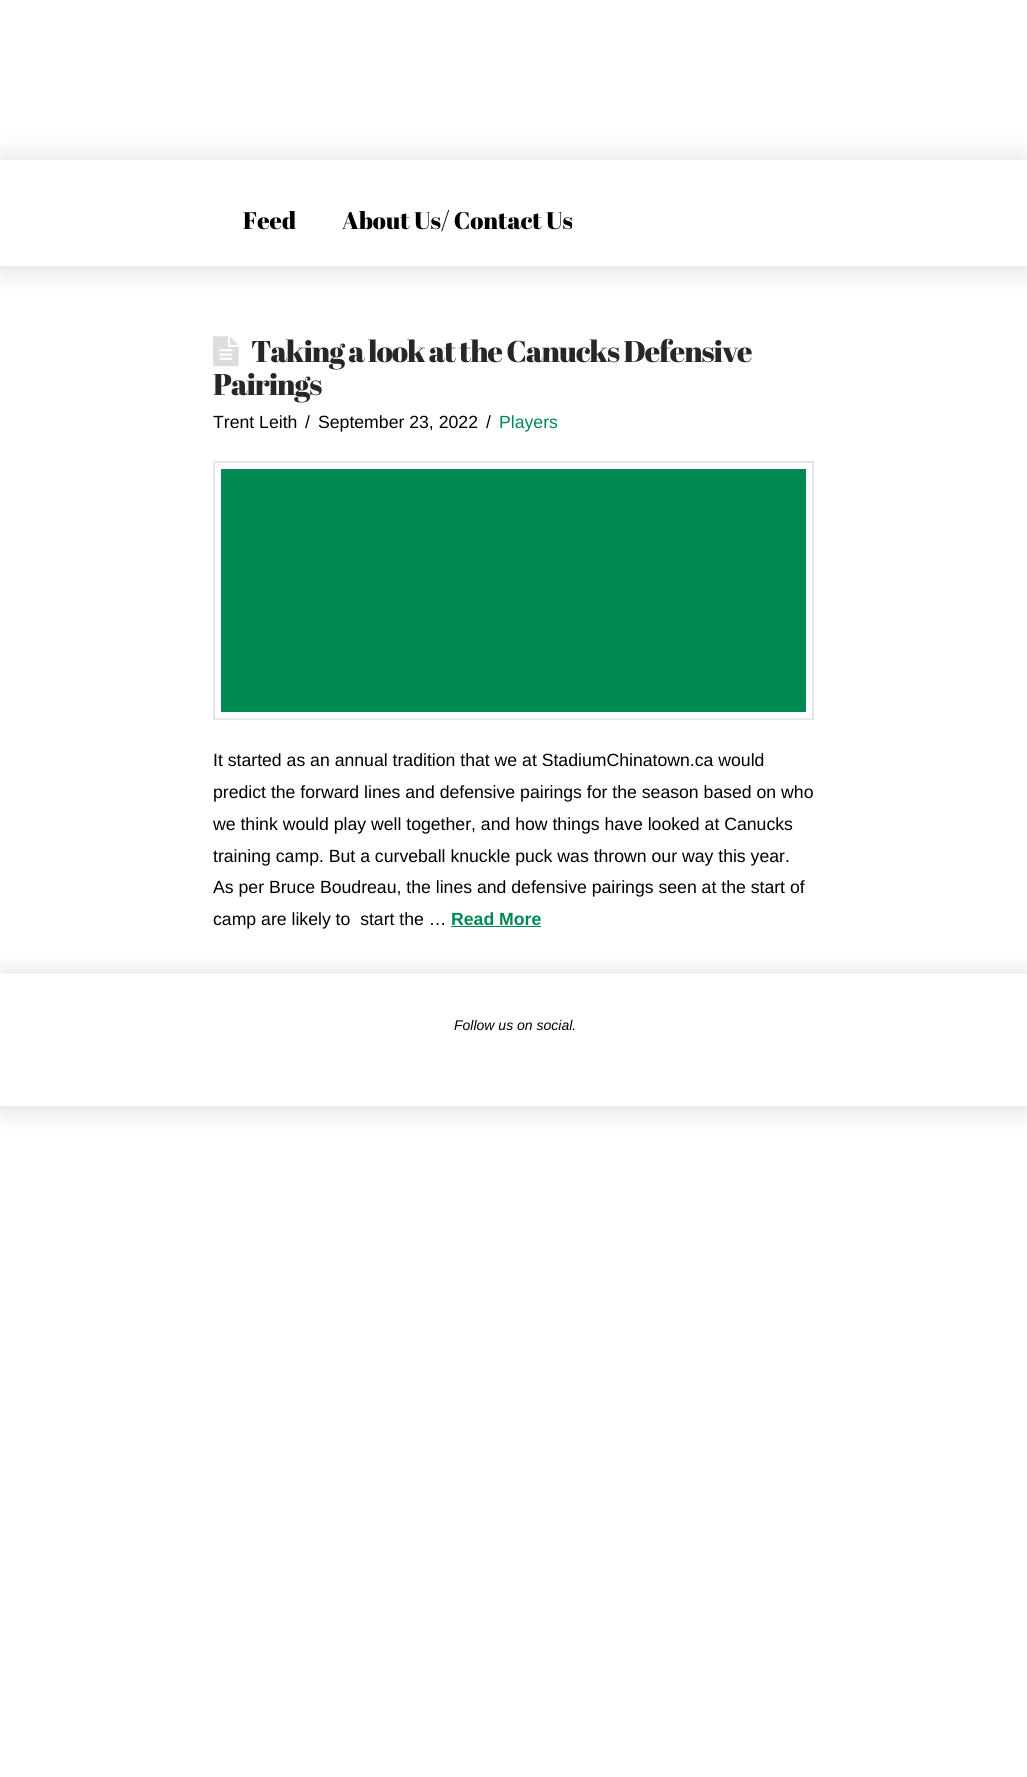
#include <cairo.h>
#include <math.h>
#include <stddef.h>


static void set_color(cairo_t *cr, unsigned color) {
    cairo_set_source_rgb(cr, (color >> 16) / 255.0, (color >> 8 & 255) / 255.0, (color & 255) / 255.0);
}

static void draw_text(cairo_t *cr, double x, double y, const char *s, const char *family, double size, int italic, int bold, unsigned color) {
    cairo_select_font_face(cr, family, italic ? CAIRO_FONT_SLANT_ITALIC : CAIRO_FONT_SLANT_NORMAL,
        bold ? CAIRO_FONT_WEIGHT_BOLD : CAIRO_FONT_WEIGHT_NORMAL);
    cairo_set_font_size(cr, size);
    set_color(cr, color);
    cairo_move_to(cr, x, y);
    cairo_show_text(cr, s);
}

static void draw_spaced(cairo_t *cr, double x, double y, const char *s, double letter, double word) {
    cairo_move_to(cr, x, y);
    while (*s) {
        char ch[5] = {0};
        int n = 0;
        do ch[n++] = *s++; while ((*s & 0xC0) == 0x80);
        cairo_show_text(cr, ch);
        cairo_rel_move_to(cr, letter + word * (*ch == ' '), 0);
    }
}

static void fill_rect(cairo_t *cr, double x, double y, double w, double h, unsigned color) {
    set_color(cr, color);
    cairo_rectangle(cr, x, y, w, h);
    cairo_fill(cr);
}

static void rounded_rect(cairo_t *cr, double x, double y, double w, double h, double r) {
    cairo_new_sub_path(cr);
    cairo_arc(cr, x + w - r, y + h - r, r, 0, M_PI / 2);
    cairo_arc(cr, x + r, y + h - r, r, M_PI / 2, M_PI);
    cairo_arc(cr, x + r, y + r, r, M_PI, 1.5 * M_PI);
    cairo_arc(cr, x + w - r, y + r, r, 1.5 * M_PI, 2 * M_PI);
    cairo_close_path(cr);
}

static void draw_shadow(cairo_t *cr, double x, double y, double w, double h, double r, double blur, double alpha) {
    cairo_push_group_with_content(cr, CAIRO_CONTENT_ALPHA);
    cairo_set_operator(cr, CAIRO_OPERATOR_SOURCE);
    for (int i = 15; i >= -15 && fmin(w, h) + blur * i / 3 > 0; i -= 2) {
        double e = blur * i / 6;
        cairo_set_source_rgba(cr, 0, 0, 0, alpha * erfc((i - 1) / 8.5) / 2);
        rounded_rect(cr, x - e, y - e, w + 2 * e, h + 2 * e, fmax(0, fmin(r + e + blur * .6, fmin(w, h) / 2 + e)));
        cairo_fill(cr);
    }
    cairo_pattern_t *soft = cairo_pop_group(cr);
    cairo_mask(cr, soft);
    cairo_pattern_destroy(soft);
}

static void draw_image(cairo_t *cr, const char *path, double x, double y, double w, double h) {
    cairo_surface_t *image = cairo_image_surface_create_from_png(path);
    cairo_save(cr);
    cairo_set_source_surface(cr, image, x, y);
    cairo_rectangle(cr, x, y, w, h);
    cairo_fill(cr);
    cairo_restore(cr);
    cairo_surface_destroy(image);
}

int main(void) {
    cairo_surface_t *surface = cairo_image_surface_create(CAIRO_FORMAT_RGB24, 1027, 1777);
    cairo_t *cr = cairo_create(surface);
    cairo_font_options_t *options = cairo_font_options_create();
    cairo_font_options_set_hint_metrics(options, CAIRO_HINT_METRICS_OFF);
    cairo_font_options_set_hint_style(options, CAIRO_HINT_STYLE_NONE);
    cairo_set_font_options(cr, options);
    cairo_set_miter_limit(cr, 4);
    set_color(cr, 0xFFFFFF);
    cairo_paint(cr);
    set_color(cr, 0x000000);
    draw_shadow(cr, 0, 162, 1027, 106, 0, 16, 0.15);
    fill_rect(cr, 0, 160, 1027, 106, 0xFFFFFF);
    draw_text(cr, 243, 229, "Feed", "Abril Fatface", 24, 0, 0, 0x000000);
    draw_text(cr, 342, 229, "About Us/ Contact Us", "Abril Fatface", 24, 0, 0, 0x000000);
    draw_image(cr, "assets/img1.png", 213, 336, 26, 31);
    cairo_set_font_size(cr, 30);
    set_color(cr, 0x272727);
    draw_spaced(cr, 251, 362, "Taking a look at the Canucks Defensive", -1.05, 0);
    draw_spaced(cr, 213, 395, "Pairings", -1.05, 0);
    draw_text(cr, 213, 428, "Trent Leith", "Liberation Sans", 17.65, 0, 0, 0x000000);
    draw_text(cr, 305, 428, "/", "Liberation Sans", 17.65, 0, 0, 0x000000);
    draw_text(cr, 318, 428, "September 23, 2022", "Liberation Sans", 17.65, 0, 0, 0x000000);
    draw_text(cr, 486, 428, "/", "Liberation Sans", 17.65, 0, 0, 0x000000);
    draw_text(cr, 499, 428, "Players", "Liberation Sans", 17.65, 0, 0, 0x008852);
    cairo_rectangle(cr, 214, 462, 599, 257);
    set_color(cr, 0xE5E5E5);
    cairo_stroke(cr);
    fill_rect(cr, 221, 469, 585, 243, 0x008852);
    draw_text(cr, 213, 766, "It started as an annual tradition that we at StadiumChinatown.ca would", "Liberation Sans", 17.65, 0, 0, 0x000000);
    draw_text(cr, 213, 798, "predict the forward lines and defensive pairings for the season based on who", "Liberation Sans", 17.65, 0, 0, 0x000000);
    draw_text(cr, 213, 830, "we think would play well together, and how things have looked at Canucks", "Liberation Sans", 17.65, 0, 0, 0x000000);
    draw_text(cr, 213, 862, "training camp. But a curveball knuckle puck was thrown our way this year.", "Liberation Sans", 17.65, 0, 0, 0x000000);
    draw_text(cr, 213, 893, "As per Bruce Boudreau, the lines and defensive pairings seen at the start of", "Liberation Sans", 17.65, 0, 0, 0x000000);
    draw_text(cr, 213, 925, "camp are likely to  start the …", "Liberation Sans", 17.65, 0, 0, 0x000000);
    draw_text(cr, 451, 925, "Read More", "Liberation Sans", 17.65, 0, 1, 0x008852);
    fill_rect(cr, 451, 926, 90, 1, 0x008852);
    cairo_save(cr);
    cairo_set_fill_rule(cr, CAIRO_FILL_RULE_EVEN_ODD);
    cairo_new_path(cr);
    cairo_move_to(cr, 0, 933);
    cairo_line_to(cr, 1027, 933);
    cairo_line_to(cr, 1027, 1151);
    cairo_line_to(cr, 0, 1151);
    cairo_close_path(cr);
    cairo_move_to(cr, 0, 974);
    cairo_line_to(cr, 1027, 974);
    cairo_line_to(cr, 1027, 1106);
    cairo_line_to(cr, 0, 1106);
    cairo_close_path(cr);
    cairo_clip(cr);
    set_color(cr, 0x000000);
    draw_shadow(cr, 0, 976, 1027, 132, 0, 14, 0.15);
    cairo_restore(cr);
    draw_text(cr, 454, 1030, "Follow us on social.", "Liberation Sans", 14, 1, 0, 0x000000);
    cairo_surface_write_to_png(surface, "output.png");
    cairo_font_options_destroy(options);
    cairo_destroy(cr);
    cairo_surface_destroy(surface);
    return 0;
}
